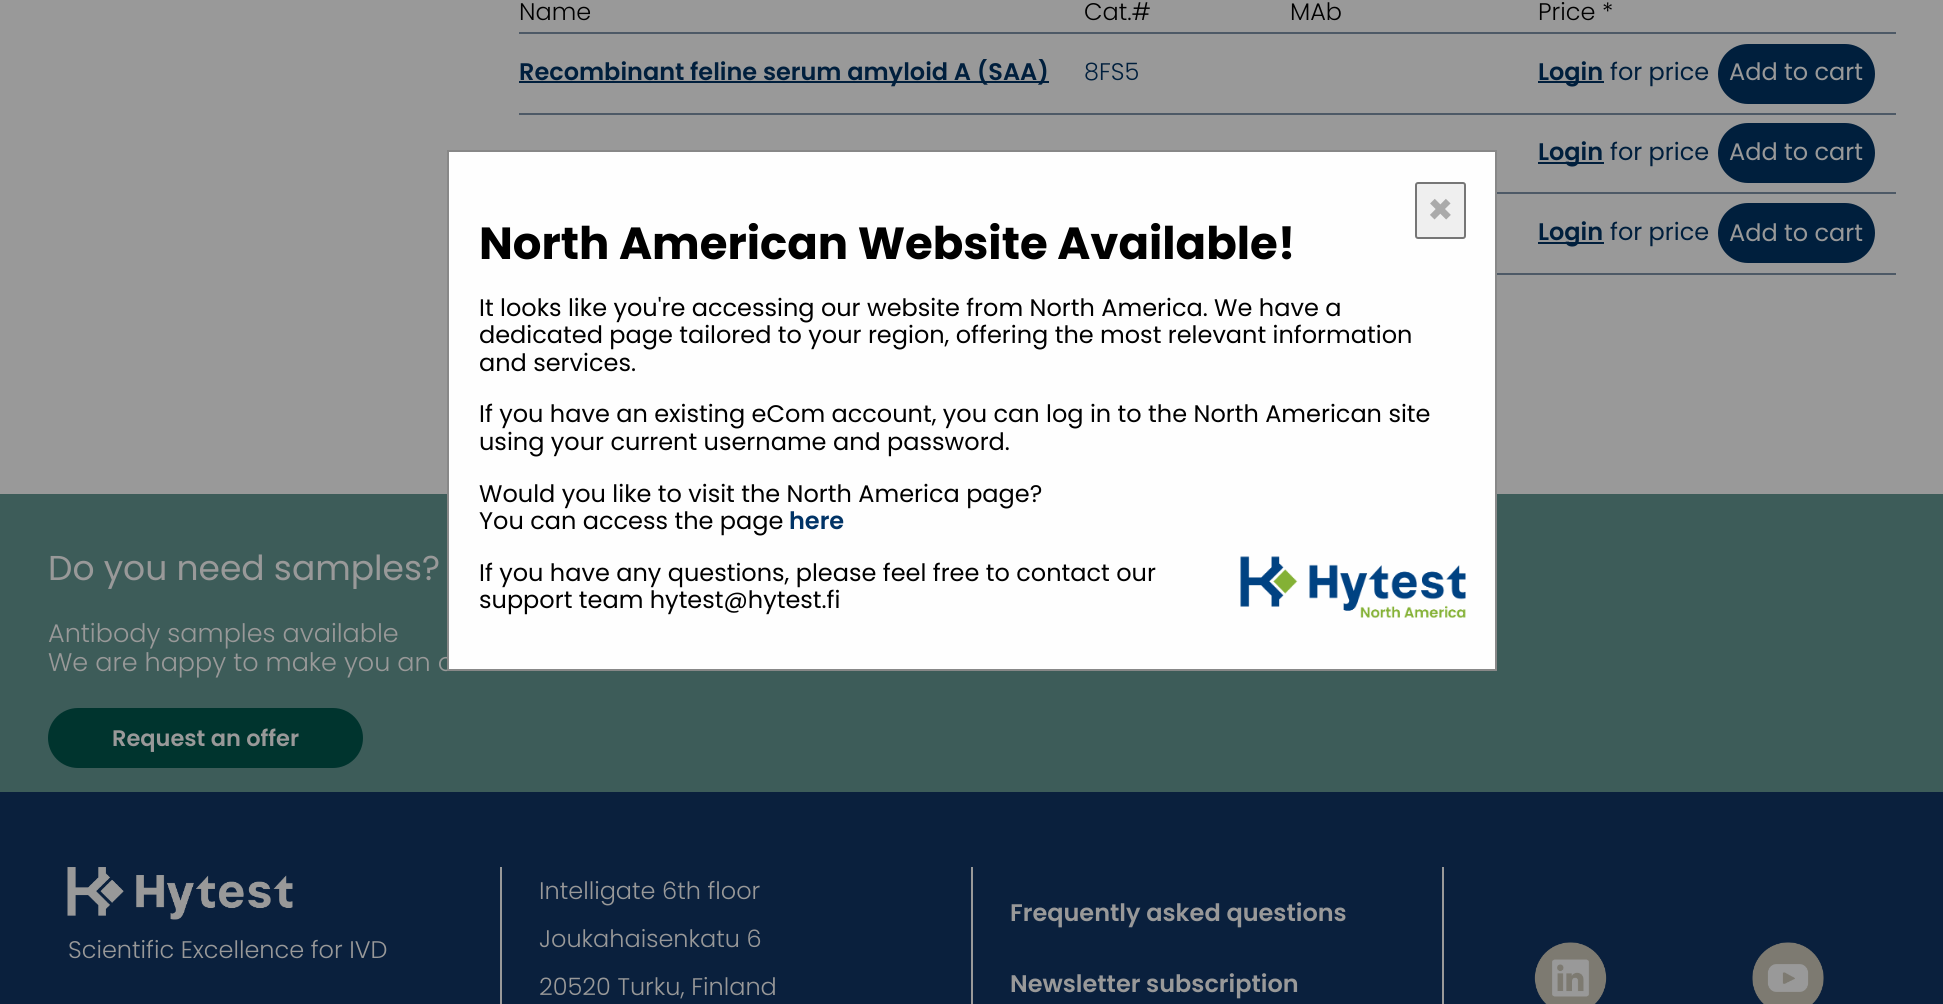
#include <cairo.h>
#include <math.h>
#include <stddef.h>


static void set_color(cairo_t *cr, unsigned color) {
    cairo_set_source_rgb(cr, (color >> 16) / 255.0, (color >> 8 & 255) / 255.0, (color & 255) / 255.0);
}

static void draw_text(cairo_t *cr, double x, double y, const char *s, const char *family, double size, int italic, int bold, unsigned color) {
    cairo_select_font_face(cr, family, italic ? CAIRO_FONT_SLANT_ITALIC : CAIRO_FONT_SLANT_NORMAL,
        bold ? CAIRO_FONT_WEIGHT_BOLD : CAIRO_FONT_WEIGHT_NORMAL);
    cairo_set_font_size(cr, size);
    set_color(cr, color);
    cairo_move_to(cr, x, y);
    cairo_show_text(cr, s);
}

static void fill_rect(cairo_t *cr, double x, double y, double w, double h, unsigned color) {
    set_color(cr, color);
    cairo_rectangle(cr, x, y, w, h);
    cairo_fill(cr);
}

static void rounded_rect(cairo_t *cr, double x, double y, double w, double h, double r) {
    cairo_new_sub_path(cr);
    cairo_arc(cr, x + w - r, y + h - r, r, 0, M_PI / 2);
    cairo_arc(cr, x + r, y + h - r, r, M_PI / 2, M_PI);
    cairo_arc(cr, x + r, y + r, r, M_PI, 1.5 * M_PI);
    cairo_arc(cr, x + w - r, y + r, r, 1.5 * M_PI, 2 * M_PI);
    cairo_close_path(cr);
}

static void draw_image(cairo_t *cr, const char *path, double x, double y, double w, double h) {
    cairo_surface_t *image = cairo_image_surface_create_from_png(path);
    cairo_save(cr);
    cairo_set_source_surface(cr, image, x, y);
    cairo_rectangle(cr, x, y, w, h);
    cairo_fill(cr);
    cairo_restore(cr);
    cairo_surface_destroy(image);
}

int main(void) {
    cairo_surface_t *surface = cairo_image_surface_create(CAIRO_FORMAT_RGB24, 1943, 1004);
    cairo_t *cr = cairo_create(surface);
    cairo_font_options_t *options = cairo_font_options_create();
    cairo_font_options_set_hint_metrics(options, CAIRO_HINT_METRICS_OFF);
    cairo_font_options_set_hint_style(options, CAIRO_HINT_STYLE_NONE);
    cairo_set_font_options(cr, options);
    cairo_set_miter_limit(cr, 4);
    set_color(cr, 0x999999);
    cairo_paint(cr);
    fill_rect(cr, 519, 32, 1377, 2, 0x4D5966);
    draw_text(cr, 519, 20, "Name", "Poppins Light", 24, 0, 0, 0x000000);
    draw_text(cr, 1084, 20, "Cat.#", "Poppins Light", 24, 0, 0, 0x000000);
    draw_text(cr, 1290, 20, "MAb", "Poppins Light", 24, 0, 0, 0x000000);
    draw_text(cr, 1538, 20, "Price *", "Poppins Light", 24, 0, 0, 0x000000);
    fill_rect(cr, 519, 113, 1377, 2, 0x4D5966);
    fill_rect(cr, 519, 81, 530, 2, 0x001F3D);
    cairo_save(cr);
    cairo_rectangle(cr, 519, 59, 564, 28);
    cairo_clip(cr);
    draw_text(cr, 519, 80, "Recombinant feline serum amyloid A (SAA)", "Poppins SemiBold", 24, 0, 0, 0x001F3D);
    cairo_restore(cr);
    draw_text(cr, 1084, 80, "8FS5", "Poppins Light", 24, 0, 0, 0x001F3D);
    fill_rect(cr, 1538, 81, 66, 2, 0x001F3D);
    draw_text(cr, 1538, 80, "Login", "Poppins SemiBold", 24, 0, 0, 0x001F3D);
    draw_text(cr, 1610, 80, "for price", "Poppins", 24, 0, 0, 0x001F3D);
    rounded_rect(cr, 1718, 44, 157, 60, 30);
    cairo_fill(cr);
    draw_text(cr, 1729, 80, "Add to cart", "Poppins", 24, 0, 0, 0x999999);
    fill_rect(cr, 1497, 192, 399, 2, 0x4D5966);
    fill_rect(cr, 1538, 162, 66, 2, 0x001F3D);
    draw_text(cr, 1538, 160, "Login", "Poppins SemiBold", 24, 0, 0, 0x001F3D);
    draw_text(cr, 1610, 160, "for price", "Poppins", 24, 0, 0, 0x001F3D);
    rounded_rect(cr, 1718, 123, 157, 60, 30);
    cairo_fill(cr);
    draw_text(cr, 1729, 160, "Add to cart", "Poppins", 24, 0, 0, 0x999999);
    fill_rect(cr, 1497, 273, 399, 2, 0x4D5966);
    fill_rect(cr, 1538, 242, 66, 2, 0x001F3D);
    draw_text(cr, 1538, 240, "Login", "Poppins SemiBold", 24, 0, 0, 0x001F3D);
    draw_text(cr, 1610, 240, "for price", "Poppins", 24, 0, 0, 0x001F3D);
    rounded_rect(cr, 1718, 203, 157, 60, 30);
    cairo_fill(cr);
    draw_text(cr, 1729, 241, "Add to cart", "Poppins", 24, 0, 0, 0x999999);
    fill_rect(cr, 0, 494, 1943, 298, 0x3D5C59);
    draw_text(cr, 48, 671, "We are happy to make you an o", "Poppins Light", 25.5, 0, 0, 0x999999);
    set_color(cr, 0xFEFEFE);
    cairo_rectangle(cr, 448, 151, 1048, 519);
    cairo_fill_preserve(cr);
    set_color(cr, 0x888888);
    cairo_stroke(cr);
    set_color(cr, 0xEFEFEF);
    rounded_rect(cr, 1416, 183, 49, 55, 2);
    cairo_fill_preserve(cr);
    set_color(cr, 0x767676);
    cairo_stroke(cr);
    draw_text(cr, 1427, 224, "×", "Poppins", 42, 0, 1, 0xAAAAAA);
    draw_text(cr, 479, 259, "North American Website Available!", "Poppins", 45, 0, 1, 0x000000);
    draw_text(cr, 479, 316, "It looks like you're accessing our website from North America. We have a", "Poppins", 24, 0, 0, 0x000000);
    draw_text(cr, 479, 343, "dedicated page tailored to your region, offering the most relevant information", "Poppins", 24, 0, 0, 0x000000);
    draw_text(cr, 479, 371, "and services.", "Poppins", 24, 0, 0, 0x000000);
    draw_text(cr, 479, 422, "If you have an existing eCom account, you can log in to the North American site", "Poppins", 24, 0, 0, 0x000000);
    draw_text(cr, 479, 450, "using your current username and password.", "Poppins", 24, 0, 0, 0x000000);
    draw_text(cr, 479, 502, "Would you like to visit the North America page?", "Poppins", 24, 0, 0, 0x000000);
    draw_text(cr, 479, 529, "You can access the page", "Poppins", 24, 0, 0, 0x000000);
    draw_text(cr, 789, 529, "here", "Poppins SemiBold", 24, 0, 0, 0x003366);
    draw_text(cr, 479, 581, "If you have any questions, please feel free to contact our", "Poppins", 24, 0, 0, 0x000000);
    draw_text(cr, 479, 608, "support team hytest@hytest.fi", "Poppins", 24, 0, 0, 0x000000);
    draw_image(cr, "assets/img1.png", 1240, 556, 226, 62);
    draw_text(cr, 48, 580, "Do you need samples?", "Poppins", 34.5, 0, 0, 0x999999);
    draw_text(cr, 48, 642, "Antibody samples available", "Poppins Light", 25.5, 0, 0, 0x999999);
    set_color(cr, 0x00342E);
    rounded_rect(cr, 48, 708, 315, 60, 30);
    cairo_fill(cr);
    draw_text(cr, 112, 746, "Request an offer", "Poppins SemiBold", 22.5, 0, 0, 0x999999);
    fill_rect(cr, 0, 792, 1943, 212, 0x0A203D);
    draw_image(cr, "assets/img2.png", 67, 867, 226, 53);
    fill_rect(cr, 500, 867, 2, 137, 0x999999);
    draw_text(cr, 68, 958, "Scientific Excellence for IVD", "Poppins Light", 24, 0, 0, 0x999999);
    draw_text(cr, 539, 899, "Intelligate 6th floor", "Poppins Light", 24, 0, 0, 0x999999);
    draw_text(cr, 539, 947, "Joukahaisenkatu 6", "Poppins Light", 24, 0, 0, 0x999999);
    draw_text(cr, 539, 995, "20520 Turku, Finland", "Poppins Light", 24, 0, 0, 0x999999);
    fill_rect(cr, 971, 867, 2, 137, 0x999999);
    draw_text(cr, 1010, 921, "Frequently asked questions", "Poppins SemiBold", 24, 0, 0, 0x999999);
    draw_text(cr, 1010, 992, "Newsletter subscription", "Poppins SemiBold", 24, 0, 0, 0x999999);
    fill_rect(cr, 1442, 867, 2, 137, 0x999999);
    draw_image(cr, "assets/img3.png", 1534, 942, 73, 62);
    draw_image(cr, "assets/img4.png", 1752, 942, 72, 62);
    cairo_surface_write_to_png(surface, "output.png");
    cairo_font_options_destroy(options);
    cairo_destroy(cr);
    cairo_surface_destroy(surface);
    return 0;
}
